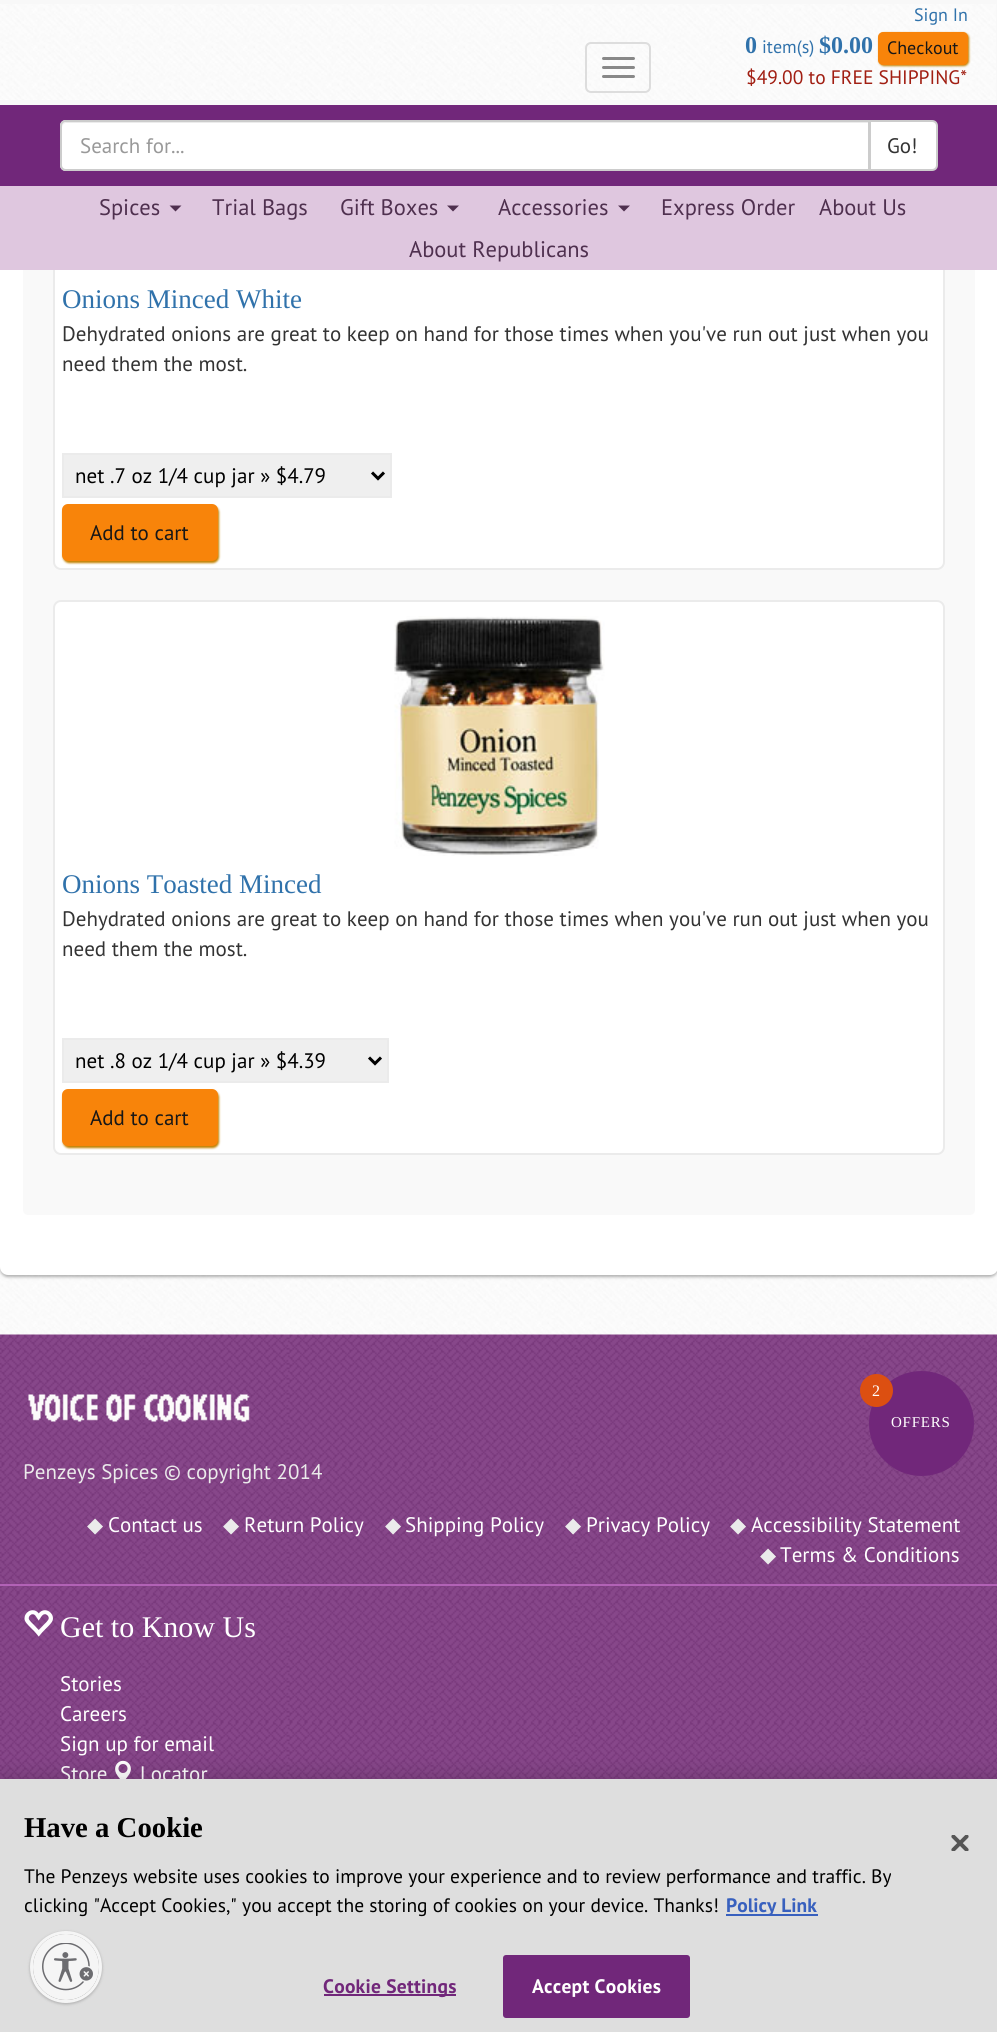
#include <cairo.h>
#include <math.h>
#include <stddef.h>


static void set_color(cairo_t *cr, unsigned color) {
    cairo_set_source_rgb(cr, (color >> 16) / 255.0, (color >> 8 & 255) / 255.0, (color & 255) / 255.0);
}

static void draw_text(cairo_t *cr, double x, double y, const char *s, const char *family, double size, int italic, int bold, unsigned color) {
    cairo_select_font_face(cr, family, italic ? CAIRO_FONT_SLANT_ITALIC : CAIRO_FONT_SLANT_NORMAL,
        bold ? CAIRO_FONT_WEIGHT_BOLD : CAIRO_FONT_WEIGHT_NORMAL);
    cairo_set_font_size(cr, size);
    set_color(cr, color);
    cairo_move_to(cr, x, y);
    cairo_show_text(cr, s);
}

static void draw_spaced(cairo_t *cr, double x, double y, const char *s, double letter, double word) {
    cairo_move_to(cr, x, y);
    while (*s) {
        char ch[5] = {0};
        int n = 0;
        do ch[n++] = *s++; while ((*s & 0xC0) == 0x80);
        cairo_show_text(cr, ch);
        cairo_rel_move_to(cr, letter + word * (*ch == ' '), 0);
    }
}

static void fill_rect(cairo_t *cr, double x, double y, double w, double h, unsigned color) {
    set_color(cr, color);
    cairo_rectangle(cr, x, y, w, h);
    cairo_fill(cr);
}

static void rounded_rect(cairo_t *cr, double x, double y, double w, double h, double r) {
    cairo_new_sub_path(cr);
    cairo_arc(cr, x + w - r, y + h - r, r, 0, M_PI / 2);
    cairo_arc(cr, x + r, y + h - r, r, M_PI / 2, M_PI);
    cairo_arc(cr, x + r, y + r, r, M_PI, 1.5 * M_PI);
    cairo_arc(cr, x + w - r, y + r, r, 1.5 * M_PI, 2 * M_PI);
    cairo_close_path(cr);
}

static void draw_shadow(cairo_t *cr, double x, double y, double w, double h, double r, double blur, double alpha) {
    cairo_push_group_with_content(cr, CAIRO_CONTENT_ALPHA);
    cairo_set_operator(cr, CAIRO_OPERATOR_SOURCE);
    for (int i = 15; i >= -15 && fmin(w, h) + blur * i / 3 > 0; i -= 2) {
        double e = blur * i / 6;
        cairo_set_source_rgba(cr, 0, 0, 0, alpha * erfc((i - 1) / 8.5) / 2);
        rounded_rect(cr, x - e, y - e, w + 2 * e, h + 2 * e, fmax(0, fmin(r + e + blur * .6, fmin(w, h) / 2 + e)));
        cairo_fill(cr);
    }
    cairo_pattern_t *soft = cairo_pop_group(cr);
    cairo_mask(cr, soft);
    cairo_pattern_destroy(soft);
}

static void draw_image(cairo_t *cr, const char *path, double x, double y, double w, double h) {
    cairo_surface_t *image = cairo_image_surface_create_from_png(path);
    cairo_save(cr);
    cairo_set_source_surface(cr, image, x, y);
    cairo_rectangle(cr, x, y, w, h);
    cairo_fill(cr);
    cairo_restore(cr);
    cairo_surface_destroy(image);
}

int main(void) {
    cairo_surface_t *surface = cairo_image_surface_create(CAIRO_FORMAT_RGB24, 997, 2032);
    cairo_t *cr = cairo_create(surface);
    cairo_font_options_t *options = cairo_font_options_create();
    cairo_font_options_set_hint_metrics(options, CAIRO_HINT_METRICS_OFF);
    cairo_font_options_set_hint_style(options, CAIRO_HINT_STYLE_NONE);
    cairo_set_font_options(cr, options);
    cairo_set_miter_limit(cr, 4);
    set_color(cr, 0xFFFFFF);
    cairo_paint(cr);
    draw_image(cr, "assets/img1.png", 0, 1267, 997, 68);
    set_color(cr, 0x323232);
    draw_shadow(cr, 0, -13, 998, 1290, 8, 1.5, 0.38);
    set_color(cr, 0xFFFFFF);
    rounded_rect(cr, 0, -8, 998, 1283, 8);
    cairo_fill(cr);
    set_color(cr, 0xF9F9F9);
    rounded_rect(cr, 23, -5, 952, 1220, 5);
    cairo_fill(cr);
    set_color(cr, 0xFFFFFF);
    rounded_rect(cr, 54, 16, 890, 553, 7);
    cairo_fill_preserve(cr);
    set_color(cr, 0xEBEBEB);
    cairo_stroke(cr);
    fill_rect(cr, 0, 0, 997, 105, 0xF8F8F8);
    draw_image(cr, "assets/img2.png", 0, 4, 996, 96);
    draw_text(cr, 914, 21, "Sign In", "PT Sans", 18, 0, 0, 0x3072AB);
    rounded_rect(cr, 586, 43, 64, 49, 5);
    set_color(cr, 0xDDDDDD);
    cairo_stroke(cr);
    set_color(cr, 0x888888);
    rounded_rect(cr, 602, 57, 33, 3, 1.5);
    cairo_fill(cr);
    rounded_rect(cr, 602, 66, 33, 3, 1.5);
    cairo_fill(cr);
    rounded_rect(cr, 602, 75, 33, 3, 1.5);
    cairo_fill(cr);
    draw_text(cr, 745, 53, "0", "Liberation Serif", 24, 0, 1, 0x3072AB);
    draw_text(cr, 762, 53, "item(s)", "PT Sans", 18, 0, 0, 0x3072AB);
    draw_text(cr, 819, 53, "$0.00", "Liberation Serif", 24, 0, 1, 0x3072AB);
    set_color(cr, 0xC28100);
    draw_shadow(cr, 879, 33, 90, 33, 5, 1, 1);
    set_color(cr, 0xF8840A);
    rounded_rect(cr, 879, 33, 88, 31, 4);
    cairo_fill_preserve(cr);
    cairo_stroke(cr);
    draw_text(cr, 887, 54, "Checkout", "PT Sans", 18, 0, 0, 0x171717);
    draw_text(cr, 746, 84, "$49.00 to FREE SHIPPING*", "PT Sans", 19.5, 0, 0, 0xA11E12);
    fill_rect(cr, 0, 105, 997, 81, 0x71277A);
    set_color(cr, 0xFFFFFF);
    cairo_new_path(cr);
    cairo_move_to(cr, 870, 121);
    cairo_line_to(cr, 932, 121);
    cairo_curve_to(cr, 935, 121, 937, 123, 937, 126);
    cairo_line_to(cr, 937, 165);
    cairo_curve_to(cr, 937, 168, 935, 170, 932, 170);
    cairo_line_to(cr, 870, 170);
    cairo_close_path(cr);
    cairo_fill_preserve(cr);
    set_color(cr, 0xCCCCCC);
    cairo_stroke(cr);
    set_color(cr, 0xFFFFFF);
    cairo_new_path(cr);
    cairo_move_to(cr, 66, 120);
    cairo_line_to(cr, 870, 120);
    cairo_line_to(cr, 870, 171);
    cairo_line_to(cr, 66, 171);
    cairo_curve_to(cr, 62.5, 171, 60, 168.5, 60, 165);
    cairo_line_to(cr, 60, 126);
    cairo_curve_to(cr, 60, 122.5, 62.5, 120, 66, 120);
    cairo_close_path(cr);
    cairo_fill(cr);
    set_color(cr, 0xECECEC);
    cairo_new_path(cr);
    cairo_move_to(cr, 66, 123);
    cairo_line_to(cr, 868, 123);
    cairo_line_to(cr, 868, 170);
    cairo_line_to(cr, 869, 170);
    cairo_line_to(cr, 869, 122);
    cairo_line_to(cr, 67, 122);
    cairo_curve_to(cr, 64, 122, 62, 124, 62, 127);
    cairo_line_to(cr, 62, 128);
    cairo_curve_to(cr, 62, 125, 64, 123, 66, 123);
    cairo_close_path(cr);
    cairo_fill(cr);
    cairo_new_path(cr);
    cairo_move_to(cr, 66, 121);
    cairo_line_to(cr, 869, 121);
    cairo_line_to(cr, 869, 170);
    cairo_line_to(cr, 66, 170);
    cairo_curve_to(cr, 63, 170, 61, 168, 61, 165);
    cairo_line_to(cr, 61, 126);
    cairo_curve_to(cr, 61, 123, 63, 121, 66, 121);
    cairo_close_path(cr);
    set_color(cr, 0xCCCCCC);
    cairo_stroke(cr);
    draw_text(cr, 80, 153, "Search for...", "PT Sans", 21, 0, 0, 0x999999);
    draw_text(cr, 887, 153, "Go!", "PT Sans", 21, 0, 0, 0x333333);
    fill_rect(cr, 0, 186, 997, 84, 0xDFC7DF);
    draw_text(cr, 99, 215, "Spices", "PT Sans", 22.5, 0, 0, 0x4F304F);
    cairo_new_path(cr);
    cairo_move_to(cr, 169.5, 205.5);
    cairo_line_to(cr, 181.5, 205.5);
    cairo_line_to(cr, 175.5, 211.5);
    cairo_close_path(cr);
    cairo_fill(cr);
    draw_text(cr, 212, 215, "Trial Bags", "PT Sans", 22.5, 0, 0, 0x4F304F);
    draw_text(cr, 340, 215, "Gift Boxes", "PT Sans", 22.5, 0, 0, 0x4F304F);
    cairo_new_path(cr);
    cairo_move_to(cr, 447, 205.5);
    cairo_line_to(cr, 459, 205.5);
    cairo_line_to(cr, 453, 211.5);
    cairo_close_path(cr);
    cairo_fill(cr);
    draw_text(cr, 498, 215, "Accessories", "PT Sans", 22.5, 0, 0, 0x4F304F);
    cairo_new_path(cr);
    cairo_move_to(cr, 618, 205.5);
    cairo_line_to(cr, 630, 205.5);
    cairo_line_to(cr, 624, 211.5);
    cairo_close_path(cr);
    cairo_fill(cr);
    draw_text(cr, 661, 215, "Express Order", "PT Sans", 22.5, 0, 0, 0x4F304F);
    draw_text(cr, 819, 215, "About Us", "PT Sans", 22.5, 0, 0, 0x4F304F);
    draw_text(cr, 409, 257, "About Republicans", "PT Sans", 22.5, 0, 0, 0x4F304F);
    draw_text(cr, 62, 308, "Onions Minced White", "Liberation Serif", 27, 0, 0, 0x3072AB);
    draw_text(cr, 62, 341, "Dehydrated onions are great to keep on hand for those times when you've run out just when you", "PT Sans", 21, 0, 0, 0x333333);
    draw_text(cr, 62, 371, "need them the most.", "PT Sans", 21, 0, 0, 0x333333);
    set_color(cr, 0xEFEFEF);
    cairo_rectangle(cr, 63, 454, 328, 43);
    cairo_fill_preserve(cr);
    set_color(cr, 0xEBEBEB);
    cairo_stroke(cr);
    cairo_new_path(cr);
    cairo_move_to(cr, 372, 472.5);
    cairo_line_to(cr, 378, 478.5);
    cairo_line_to(cr, 384, 472.5);
    set_color(cr, 0x000000);
    cairo_set_line_width(cr, 3);
    cairo_stroke(cr);
    draw_text(cr, 75, 483, "net .7 oz 1/4 cup jar » $4.79", "PT Sans", 21, 0, 0, 0x000000);
    set_color(cr, 0xC28100);
    draw_shadow(cr, 63, 506, 156, 57, 6, 1, 1);
    set_color(cr, 0xF8840A);
    rounded_rect(cr, 62, 504, 156, 57, 6);
    cairo_fill(cr);
    draw_text(cr, 90, 540, "Add to cart", "PT Sans", 21, 0, 0, 0x171717);
    set_color(cr, 0xFFFFFF);
    rounded_rect(cr, 54, 601, 890, 553, 7);
    cairo_fill_preserve(cr);
    set_color(cr, 0xEBEBEB);
    cairo_set_line_width(cr, 2);
    cairo_stroke(cr);
    draw_image(cr, "assets/img3.png", 394, 616, 211, 240);
    draw_text(cr, 62, 893, "Onions Toasted Minced", "Liberation Serif", 27, 0, 0, 0x3072AB);
    draw_text(cr, 62, 926, "Dehydrated onions are great to keep on hand for those times when you've run out just when you", "PT Sans", 21, 0, 0, 0x333333);
    draw_text(cr, 62, 956, "need them the most.", "PT Sans", 21, 0, 0, 0x333333);
    set_color(cr, 0xEFEFEF);
    cairo_rectangle(cr, 63, 1039, 325, 43);
    cairo_fill_preserve(cr);
    set_color(cr, 0xEBEBEB);
    cairo_stroke(cr);
    cairo_new_path(cr);
    cairo_move_to(cr, 369, 1057.5);
    cairo_line_to(cr, 375, 1063.5);
    cairo_line_to(cr, 381, 1057.5);
    set_color(cr, 0x000000);
    cairo_set_line_width(cr, 3);
    cairo_stroke(cr);
    draw_text(cr, 75, 1068, "net .8 oz 1/4 cup jar » $4.39", "PT Sans", 21, 0, 0, 0x000000);
    set_color(cr, 0xC28100);
    draw_shadow(cr, 63, 1091, 156, 57, 6, 1, 1);
    set_color(cr, 0xF8840A);
    rounded_rect(cr, 62, 1089, 156, 57, 6);
    cairo_fill(cr);
    draw_text(cr, 90, 1125, "Add to cart", "PT Sans", 21, 0, 0, 0x171717);
    draw_image(cr, "assets/img4.png", 0, 1334, 997, 445);
    set_color(cr, 0x71277A);
    cairo_arc(cr, 921.5, 1423.5, 52.5, 0, 2 * M_PI);
    cairo_fill(cr);
    set_color(cr, 0xDC4F11);
    cairo_arc(cr, 876.5, 1390.5, 16.5, 0, 2 * M_PI);
    cairo_fill(cr);
    cairo_select_font_face(cr, "Liberation Serif", CAIRO_FONT_SLANT_NORMAL, CAIRO_FONT_WEIGHT_NORMAL);
    cairo_set_font_size(cr, 16);
    set_color(cr, 0xFFFFFF);
    draw_spaced(cr, 872, 1396, "2", 0.75, 0);
    cairo_set_font_size(cr, 15);
    draw_spaced(cr, 891, 1427, "OFFERS", 0.75, 0);
    fill_rect(cr, 0, 1584, 997, 2, 0xB262B6);
    draw_image(cr, "assets/img5.png", 28, 1394, 222, 28);
    draw_text(cr, 23, 1479, "Penzeys Spices © copyright 2014", "PT Sans", 21, 0, 0, 0xEBEBEB);
    draw_text(cr, 87, 1532, "◆", "DejaVu Sans", 21, 0, 0, 0xEBEBEB);
    draw_text(cr, 108, 1532, "Contact us", "PT Sans", 21, 0, 0, 0xFFFFFF);
    draw_text(cr, 223, 1532, "◆", "DejaVu Sans", 21, 0, 0, 0xEBEBEB);
    draw_text(cr, 244, 1532, "Return Policy", "PT Sans", 21, 0, 0, 0xFFFFFF);
    draw_text(cr, 385, 1532, "◆", "DejaVu Sans", 21, 0, 0, 0xEBEBEB);
    draw_text(cr, 405, 1532, "Shipping Policy", "PT Sans", 21, 0, 0, 0xFFFFFF);
    draw_text(cr, 565, 1532, "◆", "DejaVu Sans", 21, 0, 0, 0xEBEBEB);
    draw_text(cr, 586, 1532, "Privacy Policy", "PT Sans", 21, 0, 0, 0xFFFFFF);
    draw_text(cr, 730, 1532, "◆", "DejaVu Sans", 21, 0, 0, 0xEBEBEB);
    draw_text(cr, 751, 1532, "Accessibility Statement", "PT Sans", 21, 0, 0, 0xFFFFFF);
    draw_text(cr, 760, 1562, "◆", "DejaVu Sans", 21, 0, 0, 0xEBEBEB);
    draw_text(cr, 780, 1562, "Terms & Conditions", "PT Sans", 21, 0, 0, 0xFFFFFF);
    draw_image(cr, "assets/img6.png", 24, 1610, 29, 27);
    draw_text(cr, 60, 1637, "Get to Know Us", "Liberation Serif", 30, 0, 0, 0xFFFFFF);
    draw_text(cr, 60, 1691, "Stories", "PT Sans", 21, 0, 0, 0xFFFFFF);
    draw_text(cr, 60, 1721, "Careers", "PT Sans", 21, 0, 0, 0xFFFFFF);
    draw_text(cr, 60, 1751, "Sign up for email", "PT Sans", 21, 0, 0, 0xFFFFFF);
    draw_text(cr, 60, 1781, "Store", "PT Sans", 21, 0, 0, 0xFFFFFF);
    draw_image(cr, "assets/img7.png", 115, 1760, 16, 19);
    draw_text(cr, 140, 1781, "Locator", "PT Sans", 21, 0, 0, 0xFFFFFF);
    set_color(cr, 0x000000);
    draw_shadow(cr, 0, 1779, 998, 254, 0, 13.5, 0.2);
    fill_rect(cr, 0, 1779, 997, 253, 0xDEDEDE);
    draw_text(cr, 24, 1837, "Have a Cookie", "Liberation Serif", 28.75, 0, 1, 0x000000);
    draw_text(cr, 24, 1883, "The Penzeys website uses cookies to improve your experience and to review performance and traffic. By", "PT Sans", 19.5, 0, 0, 0x000000);
    draw_text(cr, 24, 1912, "clicking \"Accept Cookies,\" you accept the storing of cookies on your device. Thanks!", "PT Sans", 19.5, 0, 0, 0x000000);
    fill_rect(cr, 726, 1914, 92, 2, 0x3860BE);
    draw_text(cr, 726, 1912, "Policy Link", "PT Sans", 19.5, 0, 1, 0x3860BE);
    draw_image(cr, "assets/img8.png", 951, 1835, 18, 16);
    fill_rect(cr, 324, 1994, 132, 2, 0x71277A);
    draw_spaced(cr, 323, 1993, "Cookie Settings", 0.25, 0);
    rounded_rect(cr, 504, 1956, 185, 61, 2);
    cairo_fill_preserve(cr);
    cairo_set_line_width(cr, 2);
    cairo_stroke(cr);
    set_color(cr, 0xFFFFFF);
    draw_spaced(cr, 532, 1993, "Accept Cookies", 0.25, 0);
    set_color(cr, 0x000000);
    draw_shadow(cr, 30, 1932, 72, 72, 36, 1.5, 0.24);
    cairo_arc(cr, 66, 1967, 34.5, 0, 2 * M_PI);
    set_color(cr, 0xF5F5F5);
    cairo_set_line_width(cr, 3);
    cairo_stroke(cr);
    cairo_save(cr);
    rounded_rect(cr, 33, 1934, 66, 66, 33);
    cairo_clip(cr);
    set_color(cr, 0x000000);
    draw_shadow(cr, 33, 1935, 66, 66, 33, 1.5, 0.24);
    cairo_restore(cr);
    cairo_arc(cr, 66, 1967, 33, 0, 2 * M_PI);
    cairo_fill(cr);
    draw_image(cr, "assets/img9.png", 42, 1943, 51, 48);
    cairo_surface_write_to_png(surface, "output.png");
    cairo_font_options_destroy(options);
    cairo_destroy(cr);
    cairo_surface_destroy(surface);
    return 0;
}
